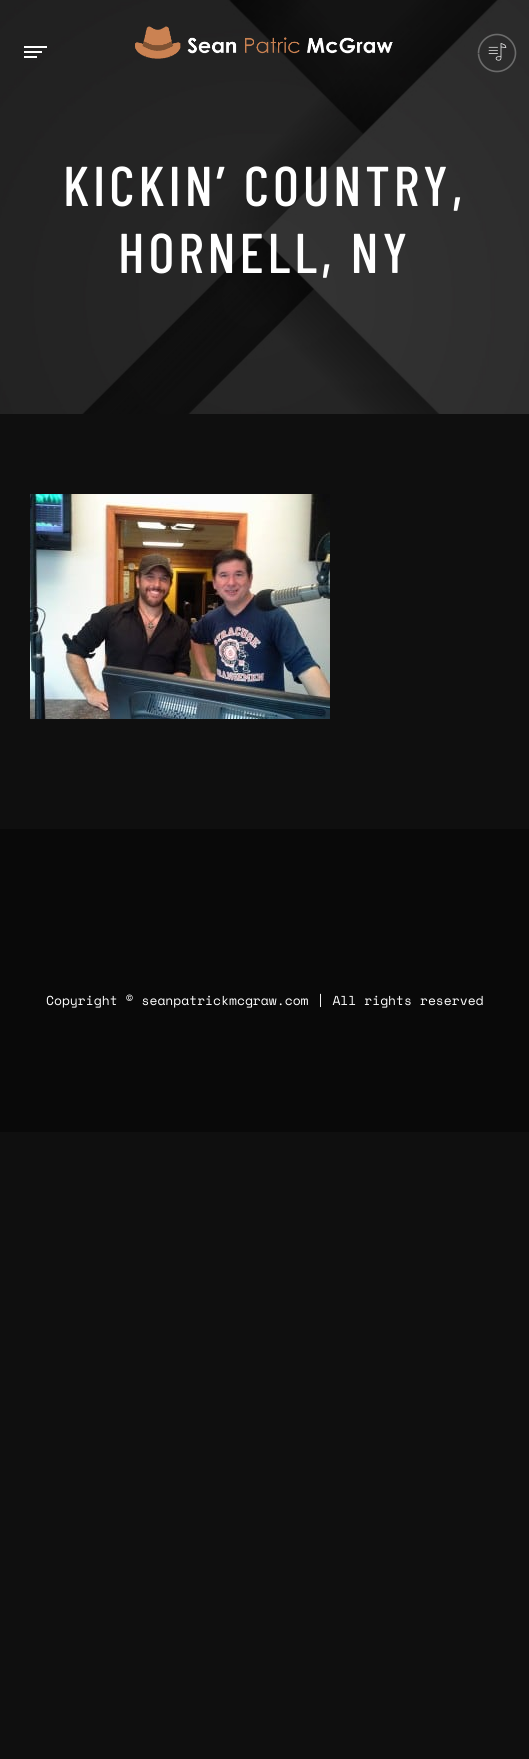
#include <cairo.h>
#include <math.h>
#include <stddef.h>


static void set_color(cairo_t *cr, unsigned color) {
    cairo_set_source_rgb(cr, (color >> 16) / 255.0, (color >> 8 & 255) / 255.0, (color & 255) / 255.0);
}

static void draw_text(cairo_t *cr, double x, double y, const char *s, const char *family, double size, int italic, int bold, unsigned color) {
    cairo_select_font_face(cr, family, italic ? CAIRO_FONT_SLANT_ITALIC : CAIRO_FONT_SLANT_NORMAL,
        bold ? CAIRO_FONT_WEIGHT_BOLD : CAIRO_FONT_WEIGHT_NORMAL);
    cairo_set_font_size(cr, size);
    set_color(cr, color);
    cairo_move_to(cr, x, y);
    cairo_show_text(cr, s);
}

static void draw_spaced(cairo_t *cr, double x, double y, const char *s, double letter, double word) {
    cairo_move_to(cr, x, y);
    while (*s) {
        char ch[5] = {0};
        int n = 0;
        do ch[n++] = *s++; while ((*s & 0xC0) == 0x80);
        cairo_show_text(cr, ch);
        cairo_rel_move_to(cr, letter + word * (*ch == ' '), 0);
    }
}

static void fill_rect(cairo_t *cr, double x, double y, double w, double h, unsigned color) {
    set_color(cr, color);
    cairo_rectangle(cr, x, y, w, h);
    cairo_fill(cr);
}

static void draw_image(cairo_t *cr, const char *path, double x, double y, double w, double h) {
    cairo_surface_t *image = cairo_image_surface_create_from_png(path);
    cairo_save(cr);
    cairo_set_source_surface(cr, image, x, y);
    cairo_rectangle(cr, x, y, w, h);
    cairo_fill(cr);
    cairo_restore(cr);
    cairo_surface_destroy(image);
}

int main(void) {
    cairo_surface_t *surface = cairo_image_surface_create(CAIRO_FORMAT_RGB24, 529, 1759);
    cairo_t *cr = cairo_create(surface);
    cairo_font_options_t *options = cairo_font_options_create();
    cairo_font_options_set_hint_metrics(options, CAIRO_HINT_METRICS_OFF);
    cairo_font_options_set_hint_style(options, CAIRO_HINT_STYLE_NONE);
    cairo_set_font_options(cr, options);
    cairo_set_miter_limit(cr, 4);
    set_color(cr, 0x0F0F0F);
    cairo_paint(cr);
    draw_image(cr, "assets/img3.png", 0, 0, 529, 414);
    draw_image(cr, "assets/img1.png", 135, 26, 258, 33);
    fill_rect(cr, 24, 51, 18, 2, 0xFFFFFF);
    fill_rect(cr, 24, 46, 23, 2, 0xFFFFFF);
    fill_rect(cr, 24, 56, 13, 2, 0xFFFFFF);
    cairo_new_path(cr);
    cairo_move_to(cr, 478.5, 53);
    cairo_curve_to(cr, 478.5, 43, 487, 34.5, 497, 34.5);
    cairo_curve_to(cr, 507, 34.5, 515.5, 43, 515.5, 53);
    cairo_curve_to(cr, 515.5, 63, 507, 71.5, 497, 71.5);
    cairo_curve_to(cr, 487, 71.5, 479, 63.5, 478.5, 53.5);
    set_color(cr, 0x6B6B6B);
    cairo_set_line_width(cr, 1.6);
    cairo_stroke(cr);
    draw_image(cr, "assets/img2.png", 488, 43, 19, 18);
    cairo_select_font_face(cr, "Barlow Condensed Medium", CAIRO_FONT_SLANT_NORMAL, CAIRO_FONT_WEIGHT_NORMAL);
    cairo_set_font_size(cr, 56);
    set_color(cr, 0xFFFFFF);
    draw_spaced(cr, 63, 206, "KICKIN’ COUNTRY,", 3.9, 0);
    draw_spaced(cr, 118, 273, "HORNELL, NY", 3.9, 0);
    draw_image(cr, "assets/img4.png", 30, 494, 300, 225);
    fill_rect(cr, 0, 829, 529, 303, 0x090909);
    draw_text(cr, 46, 1005, "Copyright © seanpatrickmcgraw.com | All rights reserved", "Space Mono", 13, 0, 0, 0xFFFFFF);
    cairo_surface_write_to_png(surface, "output.png");
    cairo_font_options_destroy(options);
    cairo_destroy(cr);
    cairo_surface_destroy(surface);
    return 0;
}
